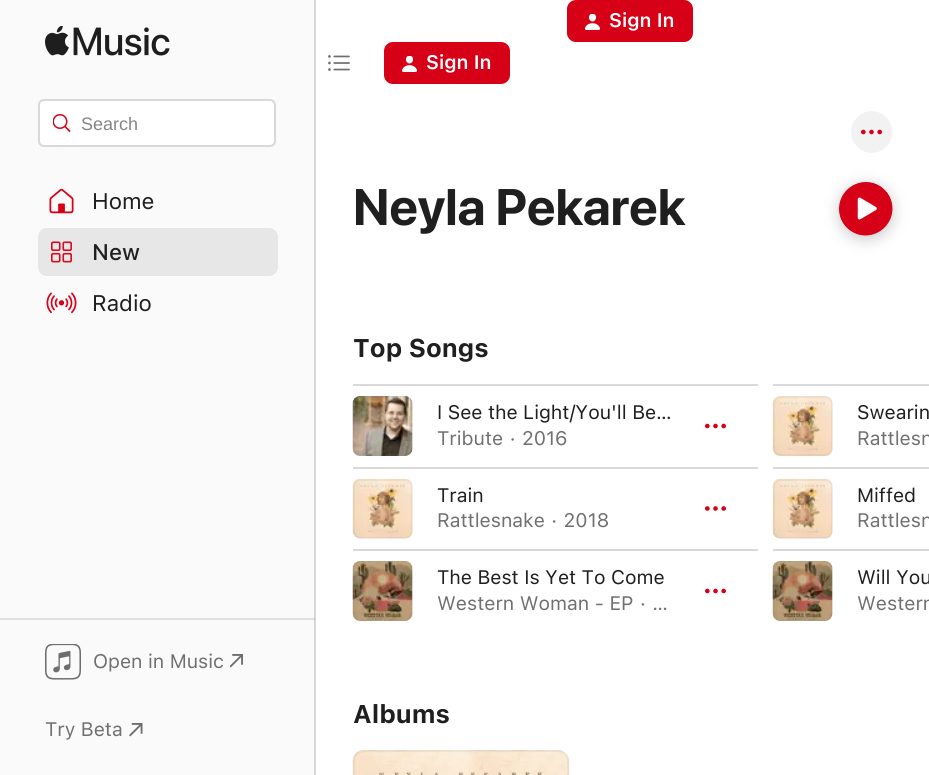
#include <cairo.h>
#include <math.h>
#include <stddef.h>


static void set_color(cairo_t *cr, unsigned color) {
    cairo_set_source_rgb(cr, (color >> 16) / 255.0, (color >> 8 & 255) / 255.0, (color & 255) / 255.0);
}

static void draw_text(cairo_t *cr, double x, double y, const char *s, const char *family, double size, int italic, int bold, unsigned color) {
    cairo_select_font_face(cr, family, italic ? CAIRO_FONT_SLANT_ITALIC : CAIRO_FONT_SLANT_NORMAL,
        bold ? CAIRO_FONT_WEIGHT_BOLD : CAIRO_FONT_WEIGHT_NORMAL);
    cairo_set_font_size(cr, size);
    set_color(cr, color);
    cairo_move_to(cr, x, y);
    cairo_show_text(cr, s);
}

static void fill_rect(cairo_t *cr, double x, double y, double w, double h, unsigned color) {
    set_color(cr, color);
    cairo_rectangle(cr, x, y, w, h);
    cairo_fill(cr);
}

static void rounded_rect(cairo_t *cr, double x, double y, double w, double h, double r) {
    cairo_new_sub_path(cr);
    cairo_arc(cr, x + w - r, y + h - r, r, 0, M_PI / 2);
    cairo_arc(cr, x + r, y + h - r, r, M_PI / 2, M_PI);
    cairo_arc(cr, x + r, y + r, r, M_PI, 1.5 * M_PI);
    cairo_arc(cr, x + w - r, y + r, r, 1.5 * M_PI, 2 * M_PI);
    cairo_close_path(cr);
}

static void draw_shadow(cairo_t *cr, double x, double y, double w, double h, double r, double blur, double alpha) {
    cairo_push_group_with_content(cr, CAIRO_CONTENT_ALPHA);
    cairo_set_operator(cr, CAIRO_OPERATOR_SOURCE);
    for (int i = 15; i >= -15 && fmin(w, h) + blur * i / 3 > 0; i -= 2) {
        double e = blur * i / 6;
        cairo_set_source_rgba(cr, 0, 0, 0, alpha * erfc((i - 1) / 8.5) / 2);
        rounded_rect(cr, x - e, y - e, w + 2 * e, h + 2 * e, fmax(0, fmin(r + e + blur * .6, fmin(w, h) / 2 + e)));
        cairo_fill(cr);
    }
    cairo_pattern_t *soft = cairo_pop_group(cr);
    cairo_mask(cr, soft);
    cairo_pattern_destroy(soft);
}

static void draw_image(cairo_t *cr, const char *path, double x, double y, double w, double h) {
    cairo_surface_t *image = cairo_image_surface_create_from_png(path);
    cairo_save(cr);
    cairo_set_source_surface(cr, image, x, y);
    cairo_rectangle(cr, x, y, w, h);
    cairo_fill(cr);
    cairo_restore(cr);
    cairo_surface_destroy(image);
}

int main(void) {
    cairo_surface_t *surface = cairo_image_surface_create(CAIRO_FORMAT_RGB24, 929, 775);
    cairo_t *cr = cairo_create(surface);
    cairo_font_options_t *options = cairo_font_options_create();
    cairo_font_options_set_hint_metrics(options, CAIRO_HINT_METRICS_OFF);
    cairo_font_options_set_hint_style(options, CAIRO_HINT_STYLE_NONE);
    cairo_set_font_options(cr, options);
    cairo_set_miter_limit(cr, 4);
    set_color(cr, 0xFFFFFF);
    cairo_paint(cr);
    fill_rect(cr, 315, 0, 1, 775, 0xD9D9D9);
    set_color(cr, 0xD60017);
    rounded_rect(cr, 567, 0, 126, 42, 9);
    cairo_fill(cr);
    draw_image(cr, "assets/img1.png", 585, 14, 15, 16);
    draw_text(cr, 609, 27, "Sign In", "SF SemiBold", 19.5, 0, 0, 0xFFFFFF);
    draw_image(cr, "assets/img2.png", 328, 55, 22, 16);
    set_color(cr, 0xD60017);
    rounded_rect(cr, 384, 42, 126, 42, 9);
    cairo_fill(cr);
    draw_image(cr, "assets/img1.png", 402, 56, 15, 16);
    draw_text(cr, 426, 69, "Sign In", "SF SemiBold", 19.5, 0, 0, 0xFFFFFF);
    fill_rect(cr, 0, 0, 314, 775, 0xFAFAFA);
    fill_rect(cr, 0, 618, 315, 2, 0xE1E1E1);
    fill_rect(cr, 314, 0, 1, 775, 0xD5D5D5);
    fill_rect(cr, 314, 618, 1, 2, 0xC0C0C0);
    draw_image(cr, "assets/img3.png", 45, 26, 125, 30);
    set_color(cr, 0xFFFFFF);
    rounded_rect(cr, 39, 100, 236, 46, 5);
    cairo_fill_preserve(cr);
    set_color(cr, 0xD9D9D9);
    cairo_stroke(cr);
    draw_image(cr, "assets/img4.png", 53, 114, 18, 18);
    draw_text(cr, 81, 130, "Search", "Liberation Sans", 18, 0, 0, 0x858585);
    draw_image(cr, "assets/img5.png", 49, 188, 25, 26);
    draw_text(cr, 92, 209, "Home", "SF", 22.5, 0, 0, 0x1F1F1F);
    set_color(cr, 0xE7E7E8);
    rounded_rect(cr, 38, 228, 240, 48, 9);
    cairo_fill(cr);
    draw_image(cr, "assets/img6.png", 51, 241, 21, 22);
    draw_text(cr, 92, 260, "New", "SF Medium", 22.5, 0, 0, 0x1F1F1F);
    draw_image(cr, "assets/img7.png", 46, 292, 31, 22);
    draw_text(cr, 92, 311, "Radio", "SF", 22.5, 0, 0, 0x1F1F1F);
    draw_image(cr, "assets/img8.png", 45, 644, 36, 36);
    draw_text(cr, 93, 668, "Open in Music", "SF", 19.5, 0, 0, 0x707070);
    draw_image(cr, "assets/img9.png", 230, 654, 13, 14);
    draw_text(cr, 45, 736, "Try Beta", "SF", 19.5, 0, 0, 0x707070);
    draw_image(cr, "assets/img10.png", 129, 723, 14, 14);
    draw_image(cr, "assets/img11.png", 851, 111, 42, 42);
    draw_text(cr, 353, 225, "Neyla Pekarek", "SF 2", 51, 0, 1, 0x1F1F1F);
    set_color(cr, 0x000000);
    draw_shadow(cr, 839, 185, 54, 54, 27, 7.5, 0.2);
    draw_image(cr, "assets/img12.png", 839, 182, 54, 54);
    draw_text(cr, 353, 357, "Top Songs", "SF", 25.5, 0, 1, 0x1F1F1F);
    fill_rect(cr, 353, 384, 405, 2, 0xD9D9D9);
    draw_image(cr, "assets/img13.png", 352, 396, 61, 60);
    rounded_rect(cr, 354, 397, 58, 58, 7);
    cairo_set_source_rgba(cr, 0.502, 0.502, 0.502, 0.1);
    cairo_stroke(cr);
    draw_text(cr, 437, 419, "I See the Light/You'll Be…", "SF", 19.5, 0, 0, 0x1F1F1F);
    draw_text(cr, 437, 445, "Tribute · 2016", "SF", 19.5, 0, 0, 0x707070);
    draw_image(cr, "assets/img14.png", 705, 423, 21, 6);
    fill_rect(cr, 773, 384, 156, 2, 0xD9D9D9);
    draw_image(cr, "assets/img15.png", 772, 396, 61, 60);
    rounded_rect(cr, 774, 397, 58, 58, 7);
    cairo_set_source_rgba(cr, 0.502, 0.502, 0.502, 0.1);
    cairo_stroke(cr);
    draw_text(cr, 857, 419, "Swearin", "SF", 19.5, 0, 0, 0x1F1F1F);
    draw_text(cr, 857, 445, "Rattlesn", "SF", 19.5, 0, 0, 0x707070);
    fill_rect(cr, 353, 467, 405, 2, 0xD9D9D9);
    draw_image(cr, "assets/img16.png", 352, 478, 61, 61);
    rounded_rect(cr, 354, 480, 58, 58, 7);
    cairo_set_source_rgba(cr, 0.502, 0.502, 0.502, 0.1);
    cairo_stroke(cr);
    draw_text(cr, 437, 502, "Train", "SF", 19.5, 0, 0, 0x1F1F1F);
    draw_text(cr, 437, 527, "Rattlesnake · 2018", "SF", 19.5, 0, 0, 0x707070);
    draw_image(cr, "assets/img17.png", 705, 506, 21, 5);
    fill_rect(cr, 773, 467, 156, 2, 0xD9D9D9);
    draw_image(cr, "assets/img18.png", 772, 478, 61, 61);
    rounded_rect(cr, 774, 480, 58, 58, 7);
    cairo_set_source_rgba(cr, 0.502, 0.502, 0.502, 0.1);
    cairo_stroke(cr);
    draw_text(cr, 857, 502, "Miffed", "SF", 19.5, 0, 0, 0x1F1F1F);
    draw_text(cr, 857, 527, "Rattlesn", "SF", 19.5, 0, 0, 0x707070);
    fill_rect(cr, 353, 549, 405, 2, 0xD9D9D9);
    draw_image(cr, "assets/img19.png", 352, 561, 61, 60);
    rounded_rect(cr, 354, 562, 58, 58, 7);
    cairo_set_source_rgba(cr, 0.502, 0.502, 0.502, 0.1);
    cairo_stroke(cr);
    draw_text(cr, 437, 584, "The Best Is Yet To Come", "SF", 19.5, 0, 0, 0x1F1F1F);
    draw_text(cr, 437, 610, "Western Woman - EP · …", "SF", 19.5, 0, 0, 0x707070);
    draw_image(cr, "assets/img14.png", 705, 588, 21, 6);
    fill_rect(cr, 773, 549, 156, 2, 0xD9D9D9);
    draw_image(cr, "assets/img20.png", 772, 561, 61, 60);
    rounded_rect(cr, 774, 562, 58, 58, 7);
    cairo_set_source_rgba(cr, 0.502, 0.502, 0.502, 0.1);
    cairo_stroke(cr);
    draw_text(cr, 857, 584, "Will You", "SF", 19.5, 0, 0, 0x1F1F1F);
    draw_text(cr, 857, 610, "Western", "SF", 19.5, 0, 0, 0x707070);
    draw_text(cr, 353, 723, "Albums", "SF", 25.5, 0, 1, 0x1F1F1F);
    set_color(cr, 0xF9E3C9);
    cairo_new_path(cr);
    cairo_move_to(cr, 364, 750);
    cairo_line_to(cr, 558, 750);
    cairo_curve_to(cr, 564, 750, 569, 755, 569, 761);
    cairo_line_to(cr, 569, 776);
    cairo_line_to(cr, 353, 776);
    cairo_line_to(cr, 353, 761);
    cairo_curve_to(cr, 353, 755, 358, 750, 364, 750);
    cairo_close_path(cr);
    cairo_fill(cr);
    draw_image(cr, "assets/img21.png", 352, 750, 217, 25);
    rounded_rect(cr, 354, 751, 214, 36, 10);
    cairo_set_source_rgba(cr, 0.502, 0.502, 0.502, 0.1);
    cairo_stroke(cr);
    cairo_surface_write_to_png(surface, "output.png");
    cairo_font_options_destroy(options);
    cairo_destroy(cr);
    cairo_surface_destroy(surface);
    return 0;
}
